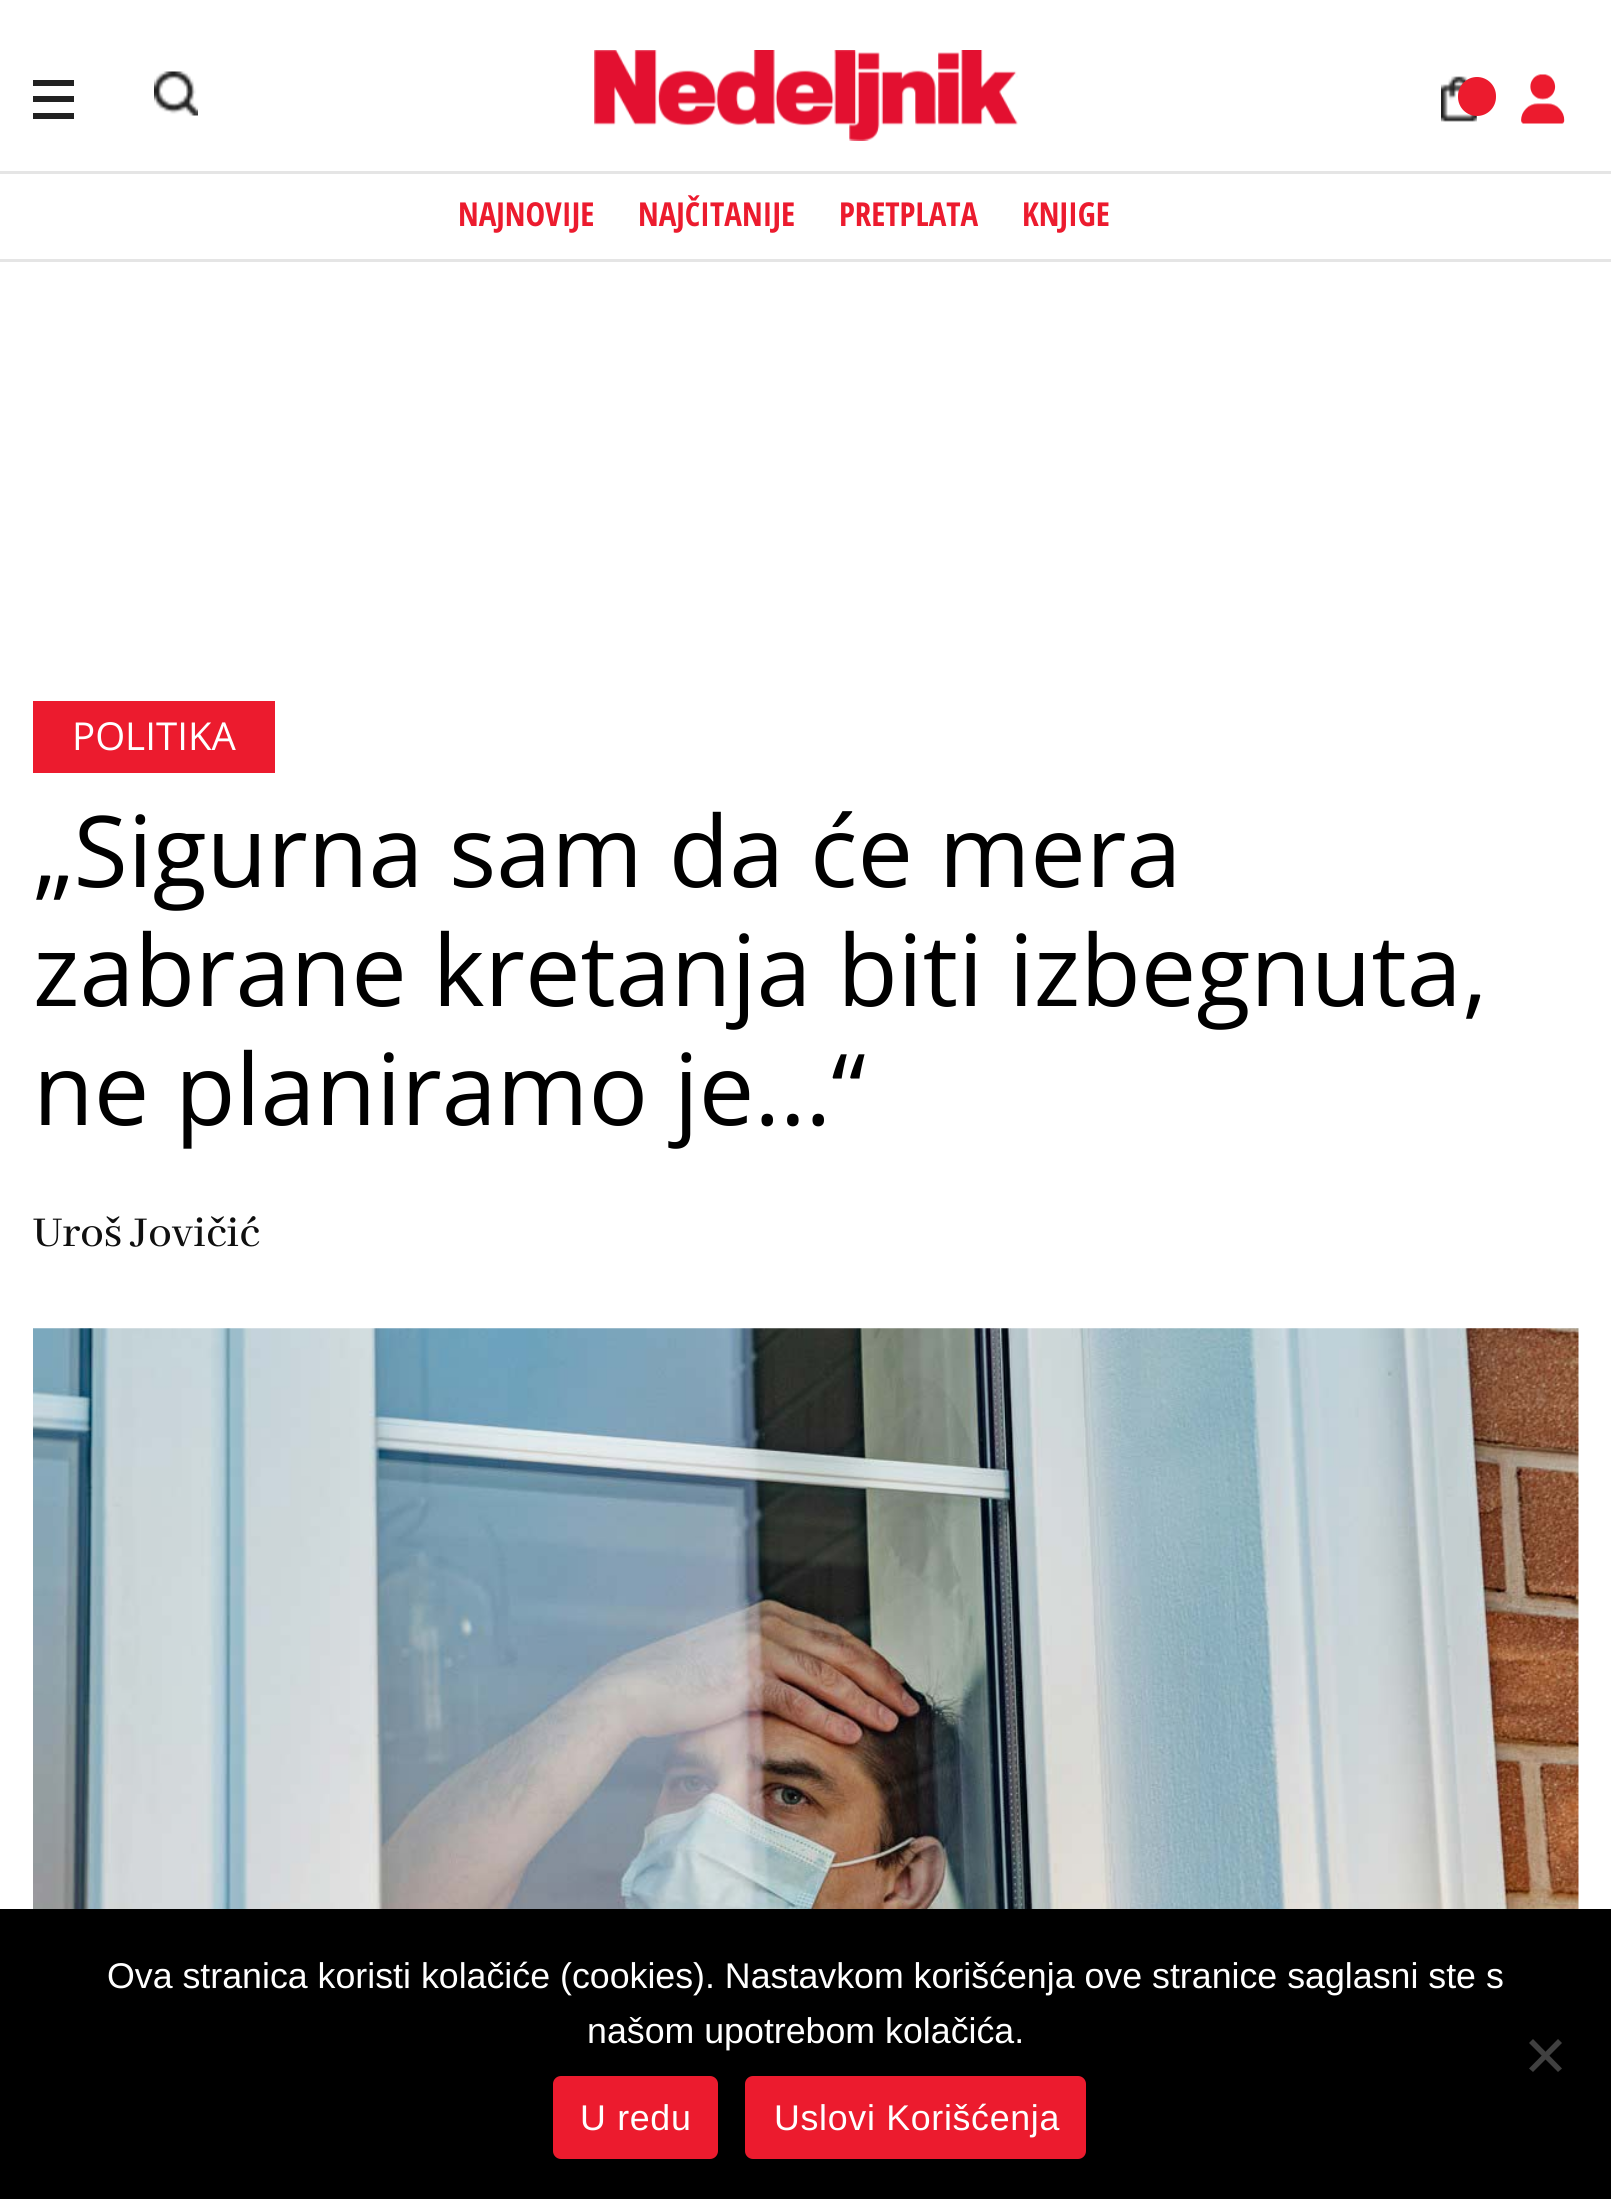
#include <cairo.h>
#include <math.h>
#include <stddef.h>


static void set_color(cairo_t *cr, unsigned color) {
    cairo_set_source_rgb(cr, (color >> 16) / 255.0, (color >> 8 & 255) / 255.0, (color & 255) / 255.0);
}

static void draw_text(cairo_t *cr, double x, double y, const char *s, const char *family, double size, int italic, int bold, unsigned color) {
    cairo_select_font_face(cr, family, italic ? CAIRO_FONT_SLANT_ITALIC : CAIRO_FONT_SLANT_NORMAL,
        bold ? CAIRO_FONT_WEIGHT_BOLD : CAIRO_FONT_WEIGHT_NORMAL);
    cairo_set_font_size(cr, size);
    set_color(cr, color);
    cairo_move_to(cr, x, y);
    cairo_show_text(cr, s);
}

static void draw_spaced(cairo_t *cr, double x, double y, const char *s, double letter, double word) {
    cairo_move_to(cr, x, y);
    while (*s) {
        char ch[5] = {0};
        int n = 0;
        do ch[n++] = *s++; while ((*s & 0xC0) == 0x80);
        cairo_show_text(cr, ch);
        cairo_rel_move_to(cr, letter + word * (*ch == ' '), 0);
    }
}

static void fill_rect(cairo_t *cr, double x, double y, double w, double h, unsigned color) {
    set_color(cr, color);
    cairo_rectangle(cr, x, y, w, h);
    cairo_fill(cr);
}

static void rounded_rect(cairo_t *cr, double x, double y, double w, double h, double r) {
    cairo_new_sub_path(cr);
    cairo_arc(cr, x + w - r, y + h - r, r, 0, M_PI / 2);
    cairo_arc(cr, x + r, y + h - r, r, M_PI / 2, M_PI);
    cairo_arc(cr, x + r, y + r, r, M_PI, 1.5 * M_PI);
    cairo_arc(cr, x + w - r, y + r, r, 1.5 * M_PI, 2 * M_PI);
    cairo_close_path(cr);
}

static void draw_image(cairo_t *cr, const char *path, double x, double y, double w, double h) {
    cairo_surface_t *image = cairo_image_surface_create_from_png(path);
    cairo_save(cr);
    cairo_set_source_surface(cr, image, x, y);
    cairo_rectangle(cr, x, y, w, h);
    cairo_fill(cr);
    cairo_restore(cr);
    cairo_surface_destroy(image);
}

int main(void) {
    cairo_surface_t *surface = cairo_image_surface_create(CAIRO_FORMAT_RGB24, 1611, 2199);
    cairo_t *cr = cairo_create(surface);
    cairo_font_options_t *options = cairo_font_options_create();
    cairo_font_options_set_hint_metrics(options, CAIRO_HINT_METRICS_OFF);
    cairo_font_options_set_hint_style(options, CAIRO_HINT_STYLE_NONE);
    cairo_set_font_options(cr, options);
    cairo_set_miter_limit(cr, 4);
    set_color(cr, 0xFFFFFF);
    cairo_paint(cr);
    fill_rect(cr, 0, 259, 1611, 3, 0xE5E5E5);
    fill_rect(cr, 33, 80, 41, 6, 0x212121);
    fill_rect(cr, 33, 96, 41, 6, 0x212121);
    fill_rect(cr, 33, 113, 41, 6, 0x212121);
    draw_image(cr, "assets/img1.png", 154, 71, 44, 45);
    draw_image(cr, "assets/img2.png", 594, 50, 424, 91);
    fill_rect(cr, 0, 171, 1611, 3, 0xE5E5E5);
    draw_image(cr, "assets/img3.png", 1441, 76, 36, 46);
    set_color(cr, 0xEC1B2E);
    rounded_rect(cr, 1458, 77, 38, 39, 19);
    cairo_fill(cr);
    draw_image(cr, "assets/img4.png", 1521, 74, 44, 50);
    draw_text(cr, 458, 226, "NAJNOVIJE", "Open Sans Condensed", 33, 0, 1, 0xEC1B2E);
    draw_text(cr, 638, 226, "NAJČITANIJE", "Open Sans Condensed", 33, 0, 1, 0xEC1B2E);
    draw_text(cr, 839, 226, "PRETPLATA", "Open Sans Condensed", 33, 0, 1, 0xEC1B2E);
    draw_text(cr, 1022, 226, "KNJIGE", "Open Sans Condensed", 33, 0, 1, 0xEC1B2E);
    fill_rect(cr, 33, 701, 242, 72, 0xEC1B2E);
    draw_text(cr, 72, 750, "POLITIKA", "Open Sans", 38.5, 0, 0, 0xFFFFFF);
    draw_text(cr, 33, 887, "„Sigurna sam da će mera", "Open Sans", 99, 0, 0, 0x000000);
    draw_text(cr, 33, 1006, "zabrane kretanja biti izbegnuta,", "Open Sans", 99, 0, 0, 0x000000);
    draw_text(cr, 33, 1125, "ne planiramo je…“", "Open Sans", 99, 0, 0, 0x000000);
    draw_text(cr, 33, 1246, "Uroš Jovičić", "Abhaya Libre Medium Medium", 46.75, 0, 0, 0x0F0F0F);
    draw_image(cr, "assets/img5.png", 33, 1328, 1546, 581);
    fill_rect(cr, 0, 1909, 1611, 290, 0x000000);
    draw_text(cr, 107, 1988, "Ova stranica koristi kolačiće (cookies). Nastavkom korišćenja ove stranice saglasni ste s", "Liberation Sans", 35.75, 0, 0, 0xFFFFFF);
    draw_text(cr, 587, 2043, "našom upotrebom kolačića.", "Liberation Sans", 35.75, 0, 0, 0xFFFFFF);
    set_color(cr, 0x404040);
    cairo_new_path(cr);
    cairo_move_to(cr, 1558, 2039);
    cairo_line_to(cr, 1562, 2043);
    cairo_line_to(cr, 1533, 2072);
    cairo_line_to(cr, 1529, 2068.5);
    cairo_close_path(cr);
    cairo_fill(cr);
    cairo_new_path(cr);
    cairo_move_to(cr, 1529, 2043);
    cairo_line_to(cr, 1533, 2039);
    cairo_line_to(cr, 1562, 2068.5);
    cairo_line_to(cr, 1558, 2072);
    cairo_close_path(cr);
    cairo_fill(cr);
    set_color(cr, 0xEC1B2E);
    rounded_rect(cr, 553, 2076, 165, 83, 8);
    cairo_fill(cr);
    set_color(cr, 0xFFFFFF);
    draw_spaced(cr, 580, 2130, "U redu", 0.7, 0);
    set_color(cr, 0xEC1B2E);
    rounded_rect(cr, 745, 2076, 341, 83, 8);
    cairo_fill(cr);
    set_color(cr, 0xFFFFFF);
    draw_spaced(cr, 774, 2130, "Uslovi Korišćenja", 0.7, 0);
    cairo_surface_write_to_png(surface, "output.png");
    cairo_font_options_destroy(options);
    cairo_destroy(cr);
    cairo_surface_destroy(surface);
    return 0;
}
